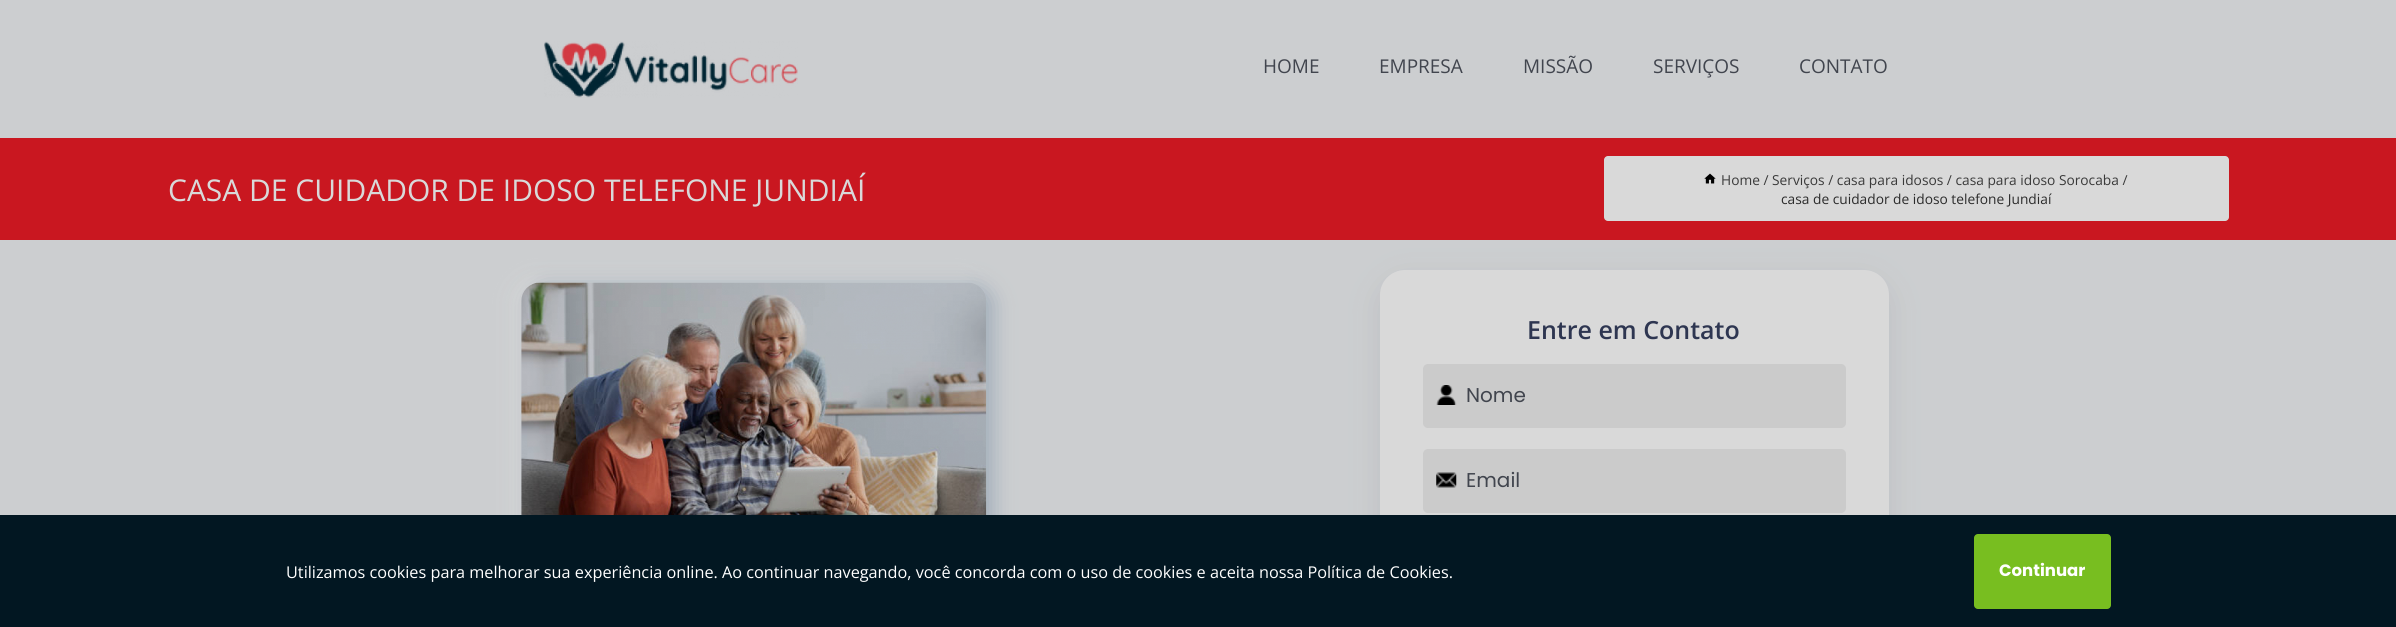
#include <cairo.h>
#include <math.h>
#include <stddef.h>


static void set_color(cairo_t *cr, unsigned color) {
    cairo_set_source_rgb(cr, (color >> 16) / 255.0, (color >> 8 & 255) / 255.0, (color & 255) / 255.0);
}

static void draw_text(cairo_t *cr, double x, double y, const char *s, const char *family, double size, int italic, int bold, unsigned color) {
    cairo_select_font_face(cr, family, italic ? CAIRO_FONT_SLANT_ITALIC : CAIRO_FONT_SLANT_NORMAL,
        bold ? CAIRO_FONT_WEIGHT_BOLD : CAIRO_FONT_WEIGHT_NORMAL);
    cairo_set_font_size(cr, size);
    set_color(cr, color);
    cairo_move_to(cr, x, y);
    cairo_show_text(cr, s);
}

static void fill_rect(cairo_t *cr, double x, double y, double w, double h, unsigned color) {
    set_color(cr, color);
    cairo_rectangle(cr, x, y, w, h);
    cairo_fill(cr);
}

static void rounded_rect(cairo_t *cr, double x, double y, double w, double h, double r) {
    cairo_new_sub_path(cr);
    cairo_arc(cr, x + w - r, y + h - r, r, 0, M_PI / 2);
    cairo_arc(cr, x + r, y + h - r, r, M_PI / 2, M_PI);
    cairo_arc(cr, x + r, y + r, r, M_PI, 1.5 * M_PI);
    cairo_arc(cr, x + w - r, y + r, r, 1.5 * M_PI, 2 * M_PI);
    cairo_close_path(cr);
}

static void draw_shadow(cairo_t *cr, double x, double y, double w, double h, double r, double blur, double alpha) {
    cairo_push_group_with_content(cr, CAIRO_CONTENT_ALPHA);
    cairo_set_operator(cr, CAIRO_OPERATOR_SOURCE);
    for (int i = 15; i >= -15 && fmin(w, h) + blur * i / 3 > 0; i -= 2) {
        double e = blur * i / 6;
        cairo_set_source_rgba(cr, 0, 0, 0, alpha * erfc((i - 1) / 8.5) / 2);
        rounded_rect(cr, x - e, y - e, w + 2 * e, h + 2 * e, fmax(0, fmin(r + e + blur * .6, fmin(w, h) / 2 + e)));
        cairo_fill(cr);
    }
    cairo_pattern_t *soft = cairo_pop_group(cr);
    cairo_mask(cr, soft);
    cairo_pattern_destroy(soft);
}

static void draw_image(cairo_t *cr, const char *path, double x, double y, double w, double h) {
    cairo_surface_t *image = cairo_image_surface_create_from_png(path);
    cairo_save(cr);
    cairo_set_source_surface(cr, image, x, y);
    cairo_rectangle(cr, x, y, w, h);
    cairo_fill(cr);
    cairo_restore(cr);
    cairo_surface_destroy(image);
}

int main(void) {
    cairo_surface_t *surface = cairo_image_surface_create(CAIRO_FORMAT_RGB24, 2396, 627);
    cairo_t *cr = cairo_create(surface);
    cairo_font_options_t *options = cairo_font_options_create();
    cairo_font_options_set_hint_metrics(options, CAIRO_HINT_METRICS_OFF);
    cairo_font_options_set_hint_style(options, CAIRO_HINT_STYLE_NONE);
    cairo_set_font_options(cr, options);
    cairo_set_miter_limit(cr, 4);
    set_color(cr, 0xCCCED0);
    cairo_paint(cr);
    cairo_save(cr);
    cairo_set_fill_rule(cr, CAIRO_FILL_RULE_EVEN_ODD);
    cairo_new_path(cr);
    cairo_move_to(cr, 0, 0);
    cairo_line_to(cr, 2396, 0);
    cairo_line_to(cr, 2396, 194);
    cairo_line_to(cr, 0, 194);
    cairo_close_path(cr);
    cairo_move_to(cr, 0, 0);
    cairo_line_to(cr, 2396, 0);
    cairo_line_to(cr, 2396, 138);
    cairo_line_to(cr, 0, 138);
    cairo_close_path(cr);
    cairo_clip(cr);
    set_color(cr, 0x7F858C);
    draw_shadow(cr, 0, 10, 2396, 138, 0, 15, 0.2);
    cairo_restore(cr);
    draw_image(cr, "assets/img1.png", 544, 41, 254, 57);
    draw_text(cr, 1263, 73, "HOME", "Open Sans", 19, 0, 0, 0x41454E);
    draw_text(cr, 1379, 73, "EMPRESA", "Open Sans", 19, 0, 0, 0x41454E);
    draw_text(cr, 1523, 73, "MISSÃO", "Open Sans", 19, 0, 0, 0x41454E);
    draw_text(cr, 1653, 73, "SERVIÇOS", "Open Sans", 19, 0, 0, 0x41454E);
    draw_text(cr, 1799, 73, "CONTATO", "Open Sans", 19, 0, 0, 0x41454E);
    fill_rect(cr, 0, 138, 2396, 102, 0xC91720);
    draw_text(cr, 168, 201, "CASA DE CUIDADOR DE IDOSO TELEFONE JUNDIAÍ", "Open Sans", 30, 0, 0, 0xD9D9D9);
    rounded_rect(cr, 1604, 156, 625, 65, 4);
    cairo_fill(cr);
    draw_image(cr, "assets/img2.png", 1704, 173, 12, 11);
    draw_text(cr, 1721, 185, "Home / Serviços / casa para idosos / casa para idoso Sorocaba /", "Open Sans", 13.75, 0, 0, 0x3A3A3A);
    draw_text(cr, 1781, 204, "casa de cuidador de idoso telefone Jundiaí", "Open Sans", 13.75, 0, 0, 0x2B2B2B);
    set_color(cr, 0xD9D9D9);
    draw_shadow(cr, 514, 280, 465, 310, 19, 10, 0.8);
    set_color(cr, 0x748CA2);
    draw_shadow(cr, 529, 285, 465, 310, 19, 10, 0.48);
    draw_image(cr, "assets/img3.png", 521, 282, 466, 233);
    set_color(cr, 0x7F858C);
    draw_shadow(cr, 1380, 280, 509, 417, 25, 15, 0.2);
    set_color(cr, 0xD9D9D9);
    rounded_rect(cr, 1380, 270, 509, 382, 25);
    cairo_fill(cr);
    draw_text(cr, 1527, 339, "Entre em Contato", "Open Sans SemiBold", 25, 0, 0, 0x2E3651);
    set_color(cr, 0xCBCBCB);
    rounded_rect(cr, 1423, 364, 423, 64, 5);
    cairo_fill(cr);
    draw_image(cr, "assets/img4.png", 1436, 385, 21, 20);
    draw_text(cr, 1466, 402, "Nome", "Poppins", 20, 0, 0, 0x41454E);
    set_color(cr, 0xCBCBCB);
    rounded_rect(cr, 1423, 449, 423, 64, 5);
    cairo_fill(cr);
    draw_image(cr, "assets/img5.png", 1436, 472, 21, 16);
    draw_text(cr, 1466, 487, "Email", "Poppins", 20, 0, 0, 0x41454E);
    fill_rect(cr, 0, 515, 2396, 112, 0x021722);
    draw_text(cr, 286, 578, "Utilizamos cookies para melhorar sua experiência online. Ao continuar navegando, você concorda com o uso de cookies e aceita nossa Política de Cookies.", "Open Sans", 16.25, 0, 0, 0xFFFFFF);
    set_color(cr, 0x78BE20);
    rounded_rect(cr, 1974, 534, 137, 75, 4);
    cairo_fill(cr);
    draw_text(cr, 1999, 576, "Continuar", "Poppins", 16.5, 0, 1, 0xFFFFFF);
    cairo_surface_write_to_png(surface, "output.png");
    cairo_font_options_destroy(options);
    cairo_destroy(cr);
    cairo_surface_destroy(surface);
    return 0;
}
